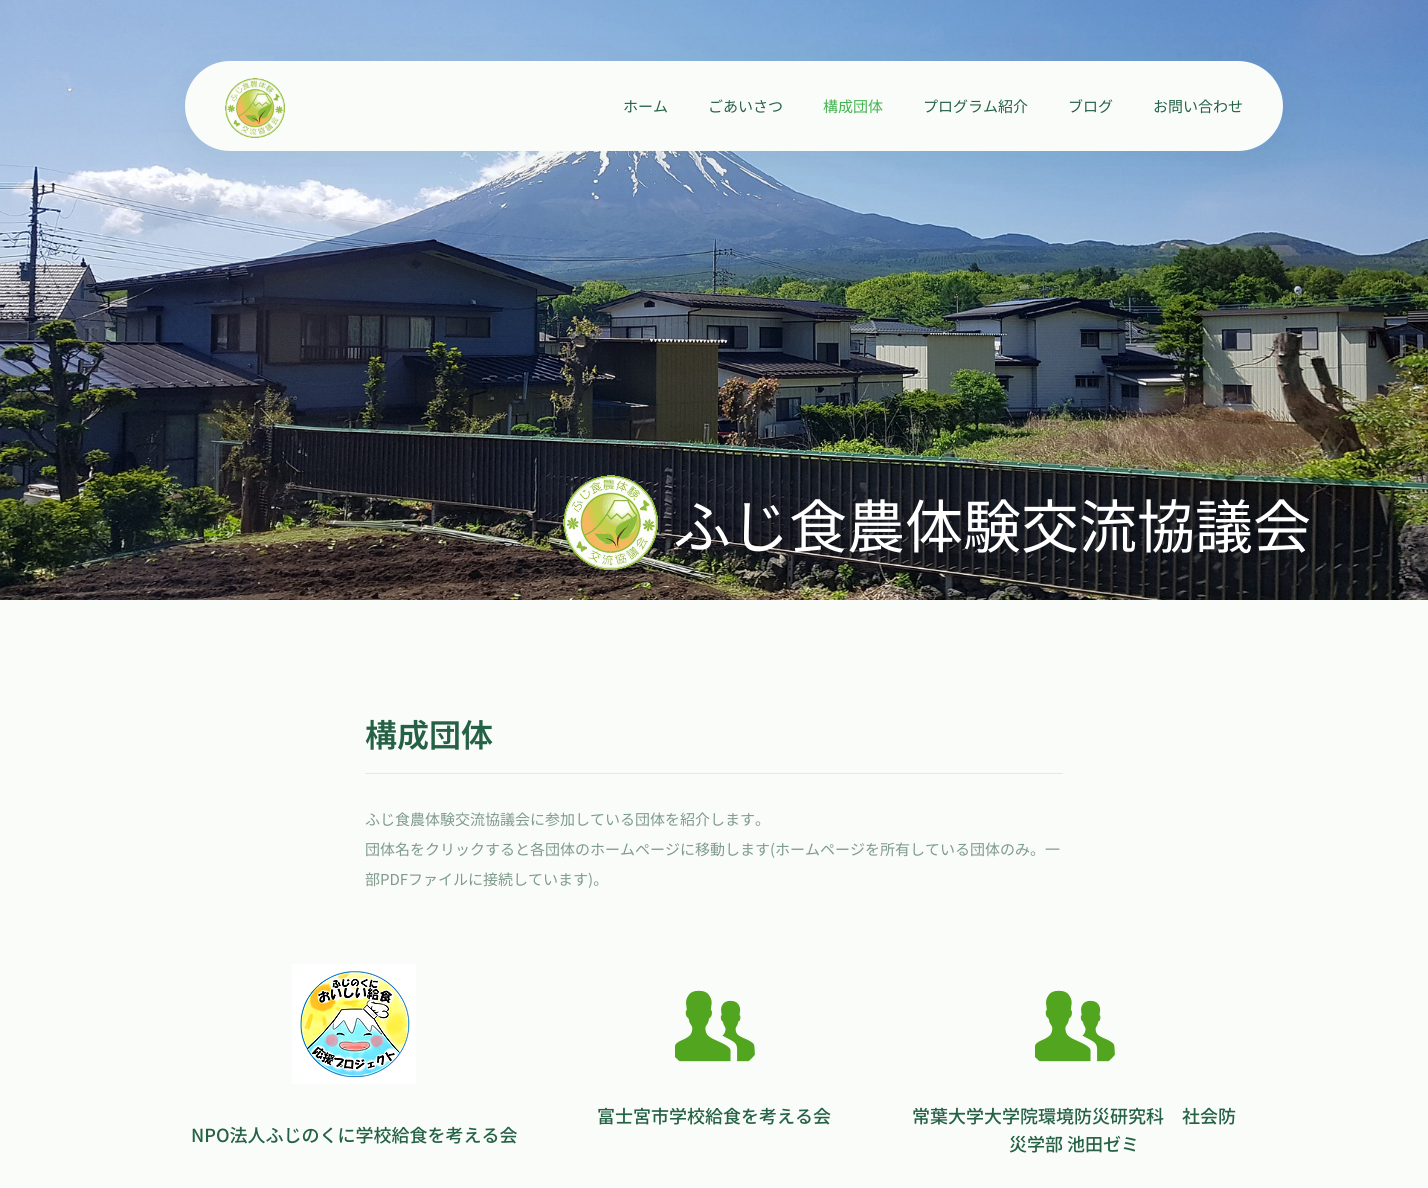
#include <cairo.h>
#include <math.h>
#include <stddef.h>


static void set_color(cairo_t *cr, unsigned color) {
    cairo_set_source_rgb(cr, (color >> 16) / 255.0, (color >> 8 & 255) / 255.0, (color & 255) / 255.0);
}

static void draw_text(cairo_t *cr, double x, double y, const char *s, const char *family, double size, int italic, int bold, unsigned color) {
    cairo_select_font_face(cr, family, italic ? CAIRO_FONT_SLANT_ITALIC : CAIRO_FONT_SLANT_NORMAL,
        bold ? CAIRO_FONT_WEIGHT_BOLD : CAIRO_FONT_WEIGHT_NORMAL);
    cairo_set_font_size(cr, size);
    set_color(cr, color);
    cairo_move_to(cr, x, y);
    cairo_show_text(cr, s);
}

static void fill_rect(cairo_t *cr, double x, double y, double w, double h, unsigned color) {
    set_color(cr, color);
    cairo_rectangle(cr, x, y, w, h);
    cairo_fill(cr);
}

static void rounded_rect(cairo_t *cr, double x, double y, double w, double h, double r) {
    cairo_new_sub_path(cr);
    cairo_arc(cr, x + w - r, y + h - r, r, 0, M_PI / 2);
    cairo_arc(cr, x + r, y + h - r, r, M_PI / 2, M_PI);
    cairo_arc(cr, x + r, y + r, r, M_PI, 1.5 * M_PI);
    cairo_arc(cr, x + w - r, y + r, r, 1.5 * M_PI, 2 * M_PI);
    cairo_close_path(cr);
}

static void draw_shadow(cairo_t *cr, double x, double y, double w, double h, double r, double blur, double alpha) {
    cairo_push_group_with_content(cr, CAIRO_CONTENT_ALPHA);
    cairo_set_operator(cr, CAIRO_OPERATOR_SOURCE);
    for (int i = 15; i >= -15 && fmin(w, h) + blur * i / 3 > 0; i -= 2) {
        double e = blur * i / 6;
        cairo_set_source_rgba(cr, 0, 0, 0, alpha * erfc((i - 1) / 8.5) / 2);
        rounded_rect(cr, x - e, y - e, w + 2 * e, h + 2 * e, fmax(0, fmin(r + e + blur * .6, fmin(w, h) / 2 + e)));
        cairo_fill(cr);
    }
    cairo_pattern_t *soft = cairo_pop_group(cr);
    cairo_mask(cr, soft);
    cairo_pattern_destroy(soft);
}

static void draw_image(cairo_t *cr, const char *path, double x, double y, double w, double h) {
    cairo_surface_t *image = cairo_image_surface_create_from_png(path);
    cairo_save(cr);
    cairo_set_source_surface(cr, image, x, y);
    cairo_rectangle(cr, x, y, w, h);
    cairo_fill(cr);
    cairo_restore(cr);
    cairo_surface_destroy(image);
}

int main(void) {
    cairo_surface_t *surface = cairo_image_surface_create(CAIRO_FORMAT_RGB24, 1428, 1188);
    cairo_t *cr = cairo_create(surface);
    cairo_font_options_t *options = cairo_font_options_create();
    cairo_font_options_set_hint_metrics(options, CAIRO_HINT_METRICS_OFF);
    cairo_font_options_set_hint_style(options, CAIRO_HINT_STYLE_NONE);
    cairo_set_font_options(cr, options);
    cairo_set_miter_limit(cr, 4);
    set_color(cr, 0xFAFCFA);
    cairo_paint(cr);
    draw_image(cr, "assets/img2.png", 0, 0, 1428, 600);
    set_color(cr, 0x135447);
    draw_shadow(cr, 185, 73, 1098, 90, 45, 25, 0.08);
    set_color(cr, 0xFAFCFA);
    rounded_rect(cr, 185, 61, 1098, 90, 45);
    cairo_fill(cr);
    draw_image(cr, "assets/img1.png", 225, 78, 60, 60);
    draw_text(cr, 623, 112, "ホーム", "Noto Sans JP Thin", 15, 0, 0, 0x256245);
    draw_text(cr, 708, 112, "ごあいさつ", "Noto Sans JP Thin", 15, 0, 0, 0x256245);
    draw_text(cr, 823, 112, "構成団体", "Noto Sans JP Thin", 15, 0, 0, 0x45B352);
    draw_text(cr, 923, 112, "プログラム紹介", "Noto Sans JP Thin", 15, 0, 0, 0x256245);
    draw_text(cr, 1068, 112, "ブログ", "Noto Sans JP Thin", 15, 0, 0, 0x256245);
    draw_text(cr, 1153, 112, "お問い合わせ", "Noto Sans JP Thin", 15, 0, 0, 0x256245);
    draw_image(cr, "assets/img3.png", 563, 475, 95, 95);
    draw_text(cr, 673, 548, "ふじ食農体験交流協議会", "Noto Sans JP Thin", 58, 0, 0, 0xFFFFFF);
    draw_text(cr, 365, 747, "構成団体", "Noto Sans JP SemiBold", 32, 0, 0, 0x256245);
    fill_rect(cr, 365, 773, 698, 1, 0xE6E8E6);
    draw_text(cr, 365, 825, "ふじ食農体験交流協議会に参加している団体を紹介します。", "Noto Sans JP Thin", 15, 0, 0, 0x7F9B8C);
    draw_text(cr, 365, 855, "団体名をクリックすると各団体のホームページに移動します(ホームページを所有している団体のみ。一", "Noto Sans JP Thin", 15, 0, 0, 0x7F9B8C);
    draw_text(cr, 365, 885, "部PDFファイルに接続しています)。", "Noto Sans JP Thin", 15, 0, 0, 0x7F9B8C);
    draw_image(cr, "assets/img4.png", 292, 964, 124, 120);
    draw_text(cr, 191, 1142, "NPO法人ふじのくに学校給食を考える会", "Noto Sans JP Medium", 18, 0, 0, 0x256245);
    draw_image(cr, "assets/img5.png", 675, 990, 80, 72);
    draw_text(cr, 597, 1123, "富士宮市学校給食を考える会", "Noto Sans JP Medium", 18, 0, 0, 0x256245);
    draw_image(cr, "assets/img5.png", 1035, 990, 80, 72);
    draw_text(cr, 912, 1123, "常葉大学大学院環境防災研究科　社会防", "Noto Sans JP Medium", 18, 0, 0, 0x256245);
    draw_text(cr, 1009, 1151, "災学部 池田ゼミ", "Noto Sans JP Medium", 18, 0, 0, 0x256245);
    cairo_surface_write_to_png(surface, "output.png");
    cairo_font_options_destroy(options);
    cairo_destroy(cr);
    cairo_surface_destroy(surface);
    return 0;
}
